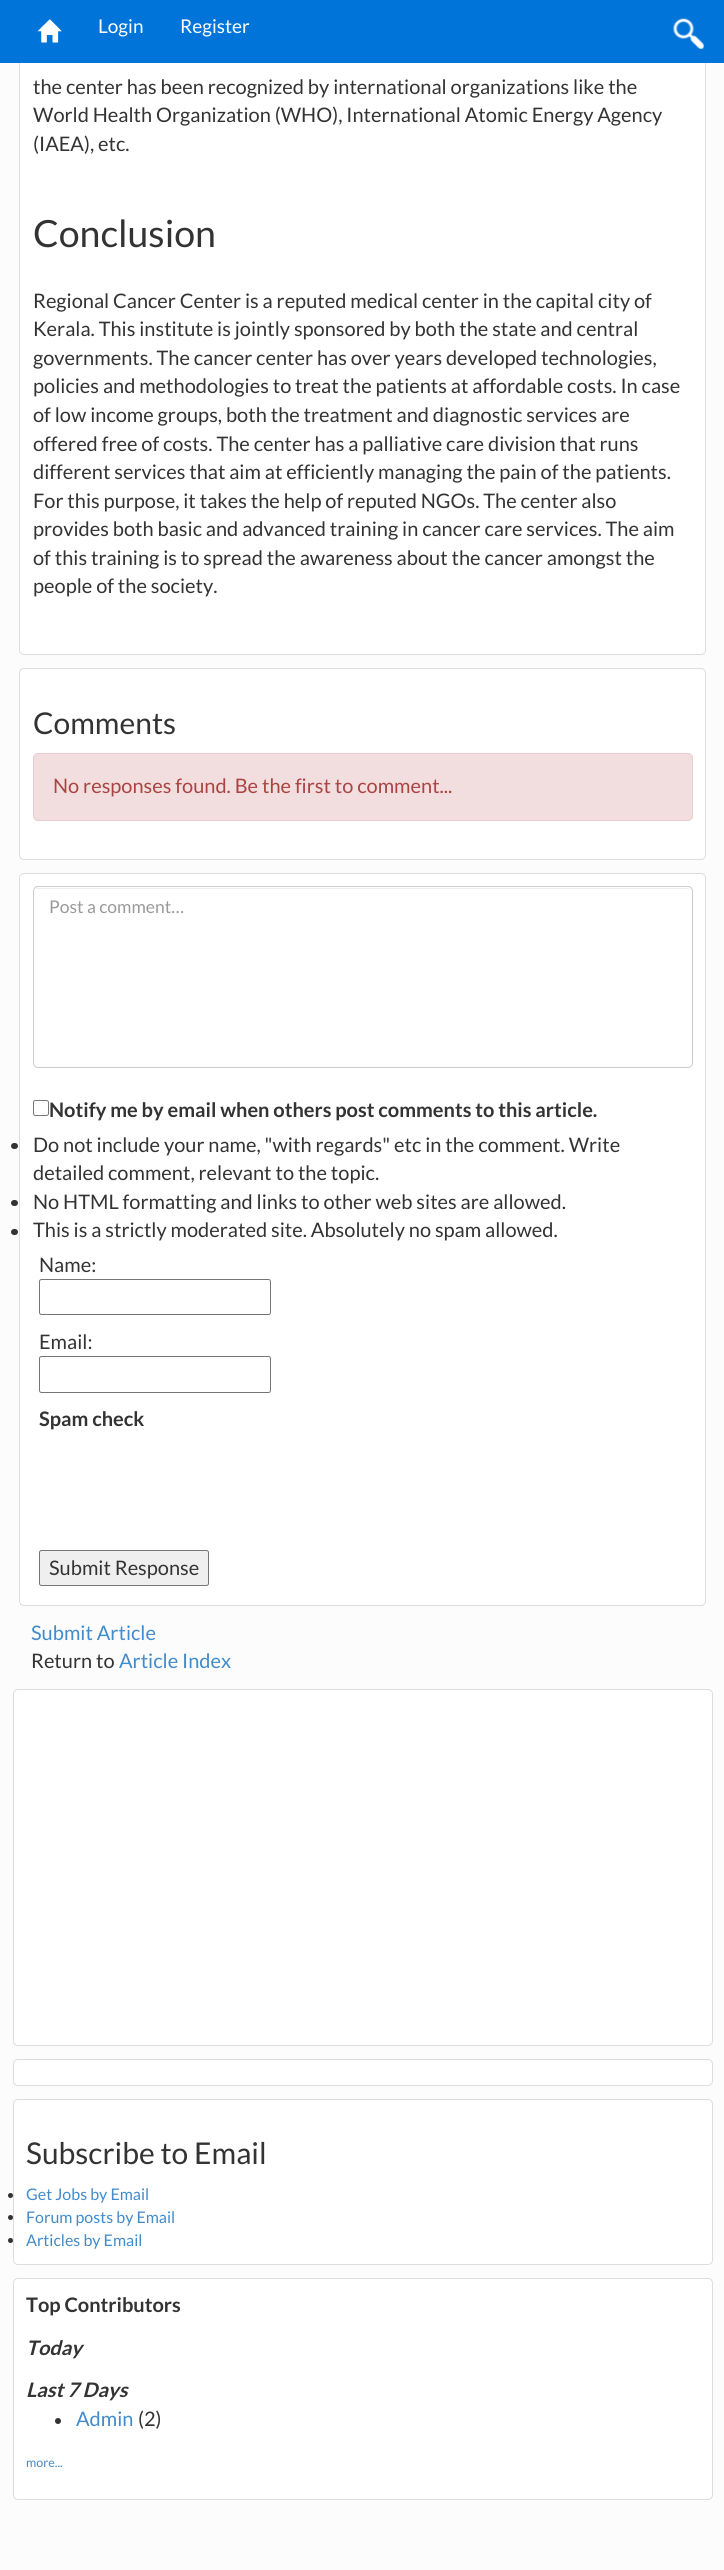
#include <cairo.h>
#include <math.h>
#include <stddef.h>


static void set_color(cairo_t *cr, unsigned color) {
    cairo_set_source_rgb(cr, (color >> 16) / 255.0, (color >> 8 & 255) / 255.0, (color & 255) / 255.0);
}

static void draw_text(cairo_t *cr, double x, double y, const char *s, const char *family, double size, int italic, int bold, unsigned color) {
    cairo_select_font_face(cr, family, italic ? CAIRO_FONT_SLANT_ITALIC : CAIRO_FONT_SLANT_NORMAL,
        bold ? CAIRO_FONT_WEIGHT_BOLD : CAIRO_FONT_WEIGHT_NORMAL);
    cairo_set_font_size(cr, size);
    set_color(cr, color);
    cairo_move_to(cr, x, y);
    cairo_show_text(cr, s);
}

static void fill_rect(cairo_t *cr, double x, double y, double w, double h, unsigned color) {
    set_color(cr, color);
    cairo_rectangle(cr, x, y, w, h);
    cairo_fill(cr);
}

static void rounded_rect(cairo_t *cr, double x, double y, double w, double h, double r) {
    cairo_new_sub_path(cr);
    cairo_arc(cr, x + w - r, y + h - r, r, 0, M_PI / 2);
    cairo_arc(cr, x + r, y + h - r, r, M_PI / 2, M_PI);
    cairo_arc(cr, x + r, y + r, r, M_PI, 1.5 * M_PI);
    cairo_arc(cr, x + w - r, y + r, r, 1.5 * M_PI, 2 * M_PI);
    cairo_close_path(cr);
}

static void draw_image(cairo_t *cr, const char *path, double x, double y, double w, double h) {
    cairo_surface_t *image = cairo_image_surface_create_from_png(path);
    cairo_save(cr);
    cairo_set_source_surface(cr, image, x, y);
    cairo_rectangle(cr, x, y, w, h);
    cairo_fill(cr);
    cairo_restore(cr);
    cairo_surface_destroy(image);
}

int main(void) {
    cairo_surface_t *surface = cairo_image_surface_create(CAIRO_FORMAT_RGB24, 724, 2570);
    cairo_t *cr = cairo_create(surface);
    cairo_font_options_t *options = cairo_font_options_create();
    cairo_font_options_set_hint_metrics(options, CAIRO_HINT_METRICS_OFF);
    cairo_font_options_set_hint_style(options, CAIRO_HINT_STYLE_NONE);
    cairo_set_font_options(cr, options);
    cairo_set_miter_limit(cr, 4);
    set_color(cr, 0xFCFCFC);
    cairo_paint(cr);
    set_color(cr, 0xFFFFFF);
    rounded_rect(cr, 19.5, -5.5, 686, 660, 4.5);
    cairo_fill_preserve(cr);
    set_color(cr, 0xDDDDDD);
    cairo_set_line_width(cr, 1);
    cairo_stroke(cr);
    fill_rect(cr, 0, 0, 724, 63, 0x0074D9);
    draw_image(cr, "assets/img1.png", 37, 19, 25, 24);
    draw_text(cr, 98, 33, "Login", "Lato", 19, 0, 0, 0xFFFFFF);
    draw_text(cr, 180, 33, "Register", "Lato", 19, 0, 0, 0xFFFFFF);
    draw_image(cr, "assets/img2.png", 673, 18, 31, 31);
    draw_text(cr, 33, 94, "the center has been recognized by international organizations like the", "Lato", 20, 0, 0, 0x333333);
    draw_text(cr, 33, 122, "World Health Organization (WHO), International Atomic Energy Agency", "Lato", 20, 0, 0, 0x333333);
    draw_text(cr, 33, 151, "(IAEA), etc.", "Lato", 20, 0, 0, 0x333333);
    draw_text(cr, 33, 247, "Conclusion", "Lato", 37.5, 0, 0, 0x333333);
    draw_text(cr, 33, 308, "Regional Cancer Center is a reputed medical center in the capital city of", "Lato", 20, 0, 0, 0x333333);
    draw_text(cr, 33, 336, "Kerala. This institute is jointly sponsored by both the state and central", "Lato", 20, 0, 0, 0x333333);
    draw_text(cr, 33, 365, "governments. The cancer center has over years developed technologies,", "Lato", 20, 0, 0, 0x333333);
    draw_text(cr, 33, 393, "policies and methodologies to treat the patients at affordable costs. In case", "Lato", 20, 0, 0, 0x333333);
    draw_text(cr, 33, 422, "of low income groups, both the treatment and diagnostic services are", "Lato", 20, 0, 0, 0x333333);
    draw_text(cr, 33, 451, "offered free of costs. The center has a palliative care division that runs", "Lato", 20, 0, 0, 0x333333);
    draw_text(cr, 33, 479, "different services that aim at efficiently managing the pain of the patients.", "Lato", 20, 0, 0, 0x333333);
    draw_text(cr, 33, 508, "For this purpose, it takes the help of reputed NGOs. The center also", "Lato", 20, 0, 0, 0x333333);
    draw_text(cr, 33, 536, "provides both basic and advanced training in cancer care services. The aim", "Lato", 20, 0, 0, 0x333333);
    draw_text(cr, 33, 565, "of this training is to spread the awareness about the cancer amongst the", "Lato", 20, 0, 0, 0x333333);
    draw_text(cr, 33, 593, "people of the society.", "Lato", 20, 0, 0, 0x333333);
    set_color(cr, 0xFFFFFF);
    rounded_rect(cr, 19.5, 668.5, 686, 191, 4.5);
    cairo_fill_preserve(cr);
    set_color(cr, 0xDDDDDD);
    cairo_stroke(cr);
    draw_text(cr, 33, 734, "Comments", "Lato", 30, 0, 0, 0x333333);
    set_color(cr, 0xF2DEDE);
    rounded_rect(cr, 33.5, 753.5, 659, 67, 4.5);
    cairo_fill_preserve(cr);
    set_color(cr, 0xEBCCD1);
    cairo_stroke(cr);
    draw_text(cr, 53, 793, "No responses found. Be the first to comment...", "Lato", 20, 0, 0, 0xA94442);
    set_color(cr, 0xFFFFFF);
    rounded_rect(cr, 19.5, 873.5, 686, 732, 4.5);
    cairo_fill_preserve(cr);
    set_color(cr, 0xDDDDDD);
    cairo_stroke(cr);
    set_color(cr, 0xECECEC);
    cairo_new_path(cr);
    cairo_move_to(cr, 38, 889);
    cairo_line_to(cr, 688, 889);
    cairo_line_to(cr, 690, 890);
    cairo_curve_to(cr, 690, 889, 688, 888, 687, 888);
    cairo_line_to(cr, 38, 888);
    cairo_curve_to(cr, 36, 888, 35, 889, 34, 890);
    cairo_curve_to(cr, 35, 889, 36, 889, 38, 889);
    cairo_close_path(cr);
    cairo_fill(cr);
    rounded_rect(cr, 33.5, 886.5, 659, 181, 4.5);
    set_color(cr, 0xCCCCCC);
    cairo_stroke(cr);
    draw_text(cr, 49, 913, "Post a comment…", "Lato", 17.5, 0, 0, 0x999999);
    rounded_rect(cr, 33.5, 1100.5, 15, 15, 2);
    set_color(cr, 0x767676);
    cairo_stroke(cr);
    draw_text(cr, 49, 1117, "Notify me by email when others post comments to this article.", "Lato", 20, 0, 1, 0x333333);
    rounded_rect(cr, 11, 1143, 7, 6, 3);
    cairo_fill(cr);
    draw_text(cr, 33, 1152, "Do not include your name, \"with regards\" etc in the comment. Write", "Lato", 20, 0, 0, 0x333333);
    draw_text(cr, 33, 1180, "detailed comment, relevant to the topic.", "Lato", 20, 0, 0, 0x333333);
    rounded_rect(cr, 11, 1200, 7, 6, 3);
    cairo_fill(cr);
    draw_text(cr, 33, 1209, "No HTML formatting and links to other web sites are allowed.", "Lato", 20, 0, 0, 0x333333);
    rounded_rect(cr, 11, 1229, 7, 6, 3);
    cairo_fill(cr);
    draw_text(cr, 33, 1237, "This is a strictly moderated site. Absolutely no spam allowed.", "Lato", 20, 0, 0, 0x333333);
    draw_text(cr, 39, 1272, "Name:", "Lato", 20, 0, 0, 0x333333);
    rounded_rect(cr, 39.5, 1279.5, 231, 35, 2);
    set_color(cr, 0x767676);
    cairo_stroke(cr);
    draw_text(cr, 39, 1349, "Email:", "Lato", 20, 0, 0, 0x333333);
    rounded_rect(cr, 39.5, 1356.5, 231, 36, 2);
    set_color(cr, 0x767676);
    cairo_stroke(cr);
    draw_text(cr, 39, 1426, "Spam check", "Lato", 20, 0, 1, 0x333333);
    set_color(cr, 0xEFEFEF);
    rounded_rect(cr, 39.5, 1550.5, 169, 35, 2);
    cairo_fill_preserve(cr);
    set_color(cr, 0x767676);
    cairo_stroke(cr);
    draw_text(cr, 49, 1575, "Submit Response", "Lato", 20, 0, 0, 0x333333);
    draw_text(cr, 31, 1640, "Submit Article", "Lato", 20, 0, 0, 0x428BCA);
    draw_text(cr, 31, 1668, "Return to", "Lato", 20, 0, 0, 0x333333);
    draw_text(cr, 119, 1668, "Article Index", "Lato", 20, 0, 0, 0x428BCA);
    set_color(cr, 0xFFFFFF);
    rounded_rect(cr, 13.5, 1689.5, 699, 356, 4.5);
    cairo_fill_preserve(cr);
    set_color(cr, 0xDDDDDD);
    cairo_stroke(cr);
    set_color(cr, 0xFFFFFF);
    rounded_rect(cr, 13.5, 2059.5, 699, 26, 4.5);
    cairo_fill_preserve(cr);
    set_color(cr, 0xDDDDDD);
    cairo_stroke(cr);
    set_color(cr, 0xFFFFFF);
    rounded_rect(cr, 13.5, 2099.5, 699, 165, 4.5);
    cairo_fill_preserve(cr);
    set_color(cr, 0xDDDDDD);
    cairo_stroke(cr);
    draw_text(cr, 26, 2164, "Subscribe to Email", "Lato", 30, 0, 0, 0x333333);
    cairo_new_path(cr);
    cairo_arc(cr, 10.5, 2195.5, 2.5, 0, 2 * M_PI);
    cairo_fill(cr);
    draw_text(cr, 26, 2200, "Get Jobs by Email", "Lato", 16, 0, 0, 0x428BCA);
    set_color(cr, 0x333333);
    cairo_new_path(cr);
    cairo_arc(cr, 10.5, 2217.5, 2.5, 0, 2 * M_PI);
    cairo_fill(cr);
    draw_text(cr, 26, 2223, "Forum posts by Email", "Lato", 16, 0, 0, 0x428BCA);
    set_color(cr, 0x333333);
    cairo_new_path(cr);
    cairo_arc(cr, 10.5, 2240.5, 2.5, 0, 2 * M_PI);
    cairo_fill(cr);
    draw_text(cr, 26, 2246, "Articles by Email", "Lato", 16, 0, 0, 0x428BCA);
    set_color(cr, 0xFFFFFF);
    rounded_rect(cr, 13.5, 2278.5, 699, 221, 4.5);
    cairo_fill_preserve(cr);
    set_color(cr, 0xDDDDDD);
    cairo_stroke(cr);
    draw_text(cr, 26, 2312, "Top Contributors", "Lato", 20, 0, 1, 0x333333);
    draw_text(cr, 26, 2355, "Today", "Lato", 20, 1, 1, 0x333333);
    draw_text(cr, 26, 2397, "Last 7 Days", "Lato", 20, 1, 1, 0x333333);
    cairo_new_path(cr);
    cairo_arc(cr, 58, 2421, 3, 0, 2 * M_PI);
    cairo_fill(cr);
    draw_text(cr, 76, 2426, "Admin", "Lato", 20, 0, 0, 0x428BCA);
    draw_text(cr, 138, 2426, "(2)", "Lato", 20, 0, 0, 0x333333);
    draw_text(cr, 26, 2467, "more...", "Lato", 12.5, 0, 0, 0x428BCA);
    cairo_surface_write_to_png(surface, "output.png");
    cairo_font_options_destroy(options);
    cairo_destroy(cr);
    cairo_surface_destroy(surface);
    return 0;
}
